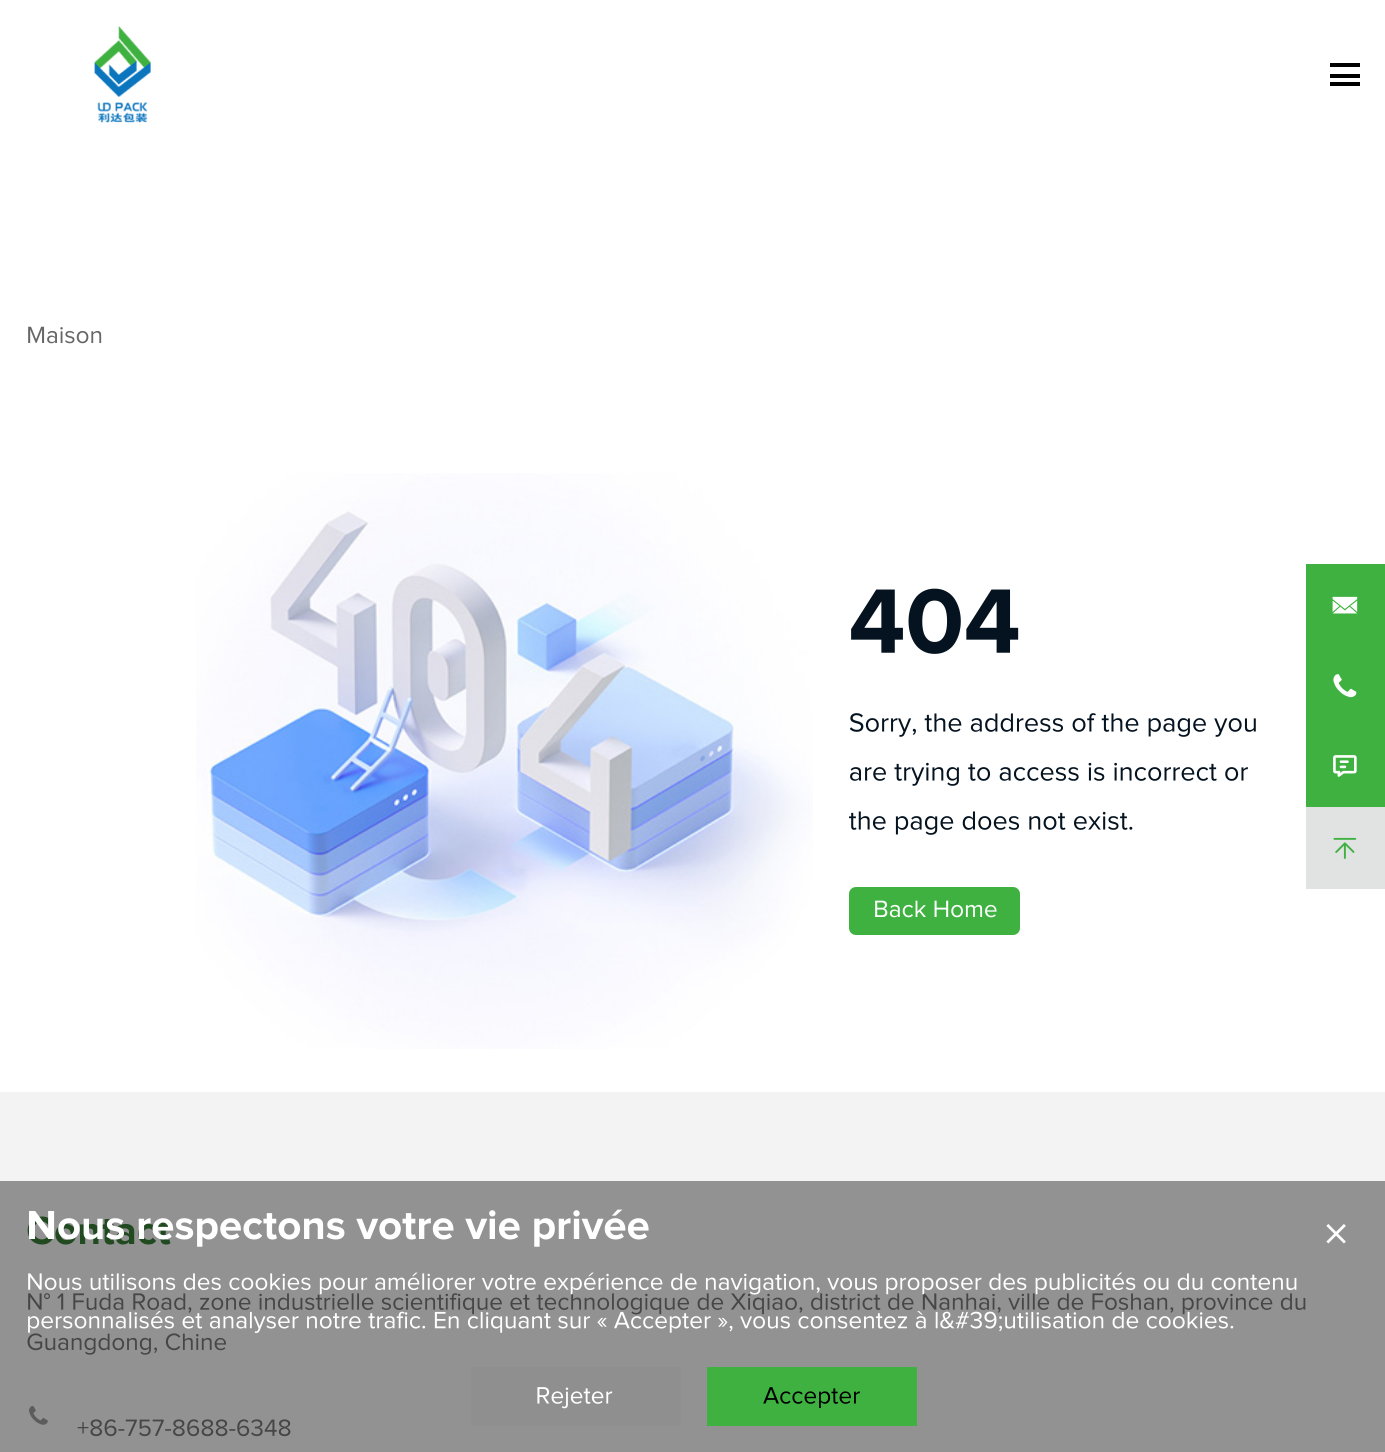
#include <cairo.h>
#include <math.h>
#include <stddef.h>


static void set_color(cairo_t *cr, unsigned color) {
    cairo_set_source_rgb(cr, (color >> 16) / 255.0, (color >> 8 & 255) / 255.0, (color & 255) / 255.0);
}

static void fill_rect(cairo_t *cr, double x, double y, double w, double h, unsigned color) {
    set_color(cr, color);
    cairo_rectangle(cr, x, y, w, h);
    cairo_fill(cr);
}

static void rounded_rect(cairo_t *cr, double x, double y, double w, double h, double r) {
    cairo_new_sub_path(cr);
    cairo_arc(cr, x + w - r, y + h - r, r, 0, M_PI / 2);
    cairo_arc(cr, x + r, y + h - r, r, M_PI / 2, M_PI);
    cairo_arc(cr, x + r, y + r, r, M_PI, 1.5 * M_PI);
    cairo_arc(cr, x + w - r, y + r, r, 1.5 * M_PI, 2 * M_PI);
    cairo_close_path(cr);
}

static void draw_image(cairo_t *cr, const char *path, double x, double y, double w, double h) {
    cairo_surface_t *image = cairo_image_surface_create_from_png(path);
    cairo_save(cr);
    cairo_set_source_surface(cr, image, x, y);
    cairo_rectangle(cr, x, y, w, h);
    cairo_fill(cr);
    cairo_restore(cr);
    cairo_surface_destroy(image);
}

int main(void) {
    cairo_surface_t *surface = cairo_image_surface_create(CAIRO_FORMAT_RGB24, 1385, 1452);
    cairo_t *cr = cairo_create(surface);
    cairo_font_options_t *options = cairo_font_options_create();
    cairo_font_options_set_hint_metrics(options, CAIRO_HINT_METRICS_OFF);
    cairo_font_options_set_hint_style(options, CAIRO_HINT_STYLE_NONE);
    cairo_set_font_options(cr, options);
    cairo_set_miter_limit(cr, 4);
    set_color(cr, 0xFFFFFF);
    cairo_paint(cr);
    draw_image(cr, "assets/img1.png", 94, 26, 57, 97);
    fill_rect(cr, 1330, 63, 30, 4, 0x000000);
    fill_rect(cr, 1330, 74, 30, 4, 0x000000);
    fill_rect(cr, 1330, 82, 30, 4, 0x000000);
    draw_image(cr, "assets/img2.png", 28, 326, 74, 18);
    draw_image(cr, "assets/img3.png", 196, 473, 617, 576);
    draw_image(cr, "assets/img4.png", 851, 588, 168, 66);
    draw_image(cr, "assets/img5.png", 849, 713, 407, 24);
    draw_image(cr, "assets/img6.png", 850, 762, 398, 24);
    draw_image(cr, "assets/img7.png", 849, 811, 284, 24);
    set_color(cr, 0x3EB140);
    rounded_rect(cr, 849, 887, 171, 48, 7);
    cairo_fill(cr);
    draw_image(cr, "assets/img8.png", 875, 900, 122, 18);
    fill_rect(cr, 1306, 564, 79, 243, 0x3EB140);
    draw_image(cr, "assets/img9.png", 1332, 596, 26, 18);
    draw_image(cr, "assets/img10.png", 1333, 674, 24, 24);
    draw_image(cr, "assets/img11.png", 1333, 755, 24, 22);
    fill_rect(cr, 1306, 807, 79, 82, 0xE1E2E2);
    draw_image(cr, "assets/img12.png", 1333, 837, 24, 22);
    fill_rect(cr, 0, 1092, 1385, 89, 0xF3F3F3);
    fill_rect(cr, 0, 1181, 1385, 271, 0x929292);
    draw_image(cr, "assets/img13.png", 27, 1216, 144, 29);
    draw_image(cr, "assets/img14.png", 28, 1293, 1278, 22);
    draw_image(cr, "assets/img15.png", 27, 1333, 199, 22);
    draw_image(cr, "assets/img16.png", 29, 1406, 19, 19);
    draw_image(cr, "assets/img17.png", 77, 1419, 214, 18);
    draw_image(cr, "assets/img18.png", 29, 1209, 620, 38);
    draw_image(cr, "assets/img19.png", 28, 1272, 1269, 23);
    draw_image(cr, "assets/img20.png", 28, 1311, 1206, 22);
    draw_image(cr, "assets/img21.png", 1326, 1224, 20, 20);
    fill_rect(cr, 471, 1367, 210, 59, 0x8F8F8F);
    draw_image(cr, "assets/img22.png", 537, 1387, 76, 22);
    fill_rect(cr, 707, 1367, 210, 59, 0x3EB140);
    draw_image(cr, "assets/img23.png", 763, 1387, 97, 21);
    cairo_surface_write_to_png(surface, "output.png");
    cairo_font_options_destroy(options);
    cairo_destroy(cr);
    cairo_surface_destroy(surface);
    return 0;
}
